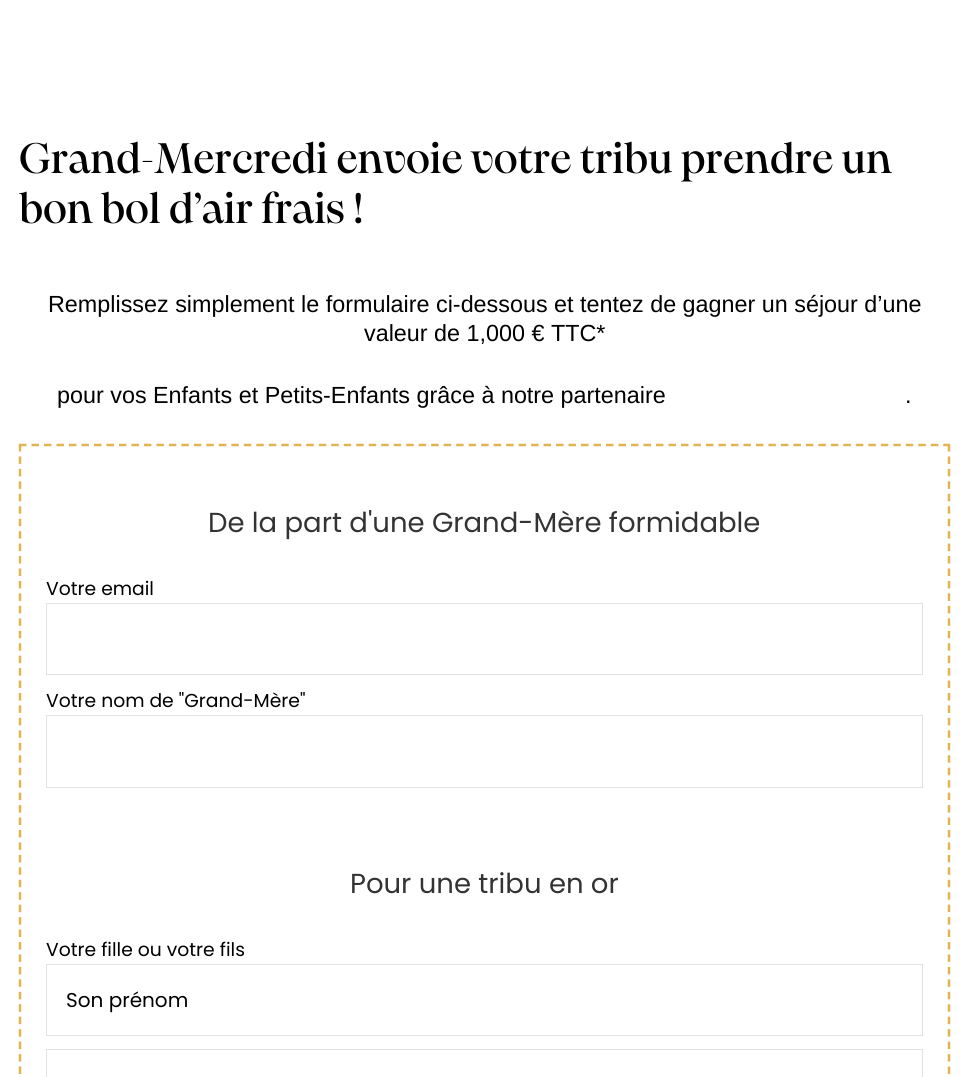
#include <cairo.h>
#include <math.h>
#include <stddef.h>


static void set_color(cairo_t *cr, unsigned color) {
    cairo_set_source_rgb(cr, (color >> 16) / 255.0, (color >> 8 & 255) / 255.0, (color & 255) / 255.0);
}

static void draw_text(cairo_t *cr, double x, double y, const char *s, const char *family, double size, int italic, int bold, unsigned color) {
    cairo_select_font_face(cr, family, italic ? CAIRO_FONT_SLANT_ITALIC : CAIRO_FONT_SLANT_NORMAL,
        bold ? CAIRO_FONT_WEIGHT_BOLD : CAIRO_FONT_WEIGHT_NORMAL);
    cairo_set_font_size(cr, size);
    set_color(cr, color);
    cairo_move_to(cr, x, y);
    cairo_show_text(cr, s);
}

int main(void) {
    cairo_surface_t *surface = cairo_image_surface_create(CAIRO_FORMAT_RGB24, 968, 1077);
    cairo_t *cr = cairo_create(surface);
    cairo_font_options_t *options = cairo_font_options_create();
    cairo_font_options_set_hint_metrics(options, CAIRO_HINT_METRICS_OFF);
    cairo_font_options_set_hint_style(options, CAIRO_HINT_STYLE_NONE);
    cairo_set_font_options(cr, options);
    cairo_set_miter_limit(cr, 4);
    set_color(cr, 0xFFFFFF);
    cairo_paint(cr);
    draw_text(cr, 19, 173, "Grand-Mercredi envoie votre tribu prendre un", "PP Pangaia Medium", 42.5, 0, 0, 0x000000);
    draw_text(cr, 19, 223, "bon bol d’air frais !", "PP Pangaia Medium", 42.5, 0, 0, 0x000000);
    draw_text(cr, 48, 312, "Remplissez simplement le formulaire ci-dessous et tentez de gagner un séjour d’une", "Liberation Sans", 23.35, 0, 0, 0x000000);
    draw_text(cr, 364, 341, "valeur de 1,000 € TTC*", "Liberation Sans", 23.35, 0, 0, 0x000000);
    draw_text(cr, 57, 403, "pour vos Enfants et Petits-Enfants grâce à notre partenaire", "Liberation Sans", 23.35, 0, 0, 0x000000);
    draw_text(cr, 905, 403, ".", "Liberation Sans", 23.35, 0, 0, 0x000000);
    cairo_new_path(cr);
    cairo_move_to(cr, 19, 445);
    cairo_line_to(cr, 950, 445);
    set_color(cr, 0xE2B353);
    cairo_set_line_width(cr, 2.5);
    cairo_set_dash(cr, (double[]){7.5, 4.99}, 2, 0);
    cairo_stroke(cr);
    cairo_new_path(cr);
    cairo_move_to(cr, 949, 444);
    cairo_line_to(cr, 949, 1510);
    cairo_set_dash(cr, (double[]){7.5, 4.95}, 2, 0);
    cairo_stroke(cr);
    cairo_new_path(cr);
    cairo_move_to(cr, 20, 444);
    cairo_line_to(cr, 20, 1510);
    cairo_stroke(cr);
    draw_text(cr, 208, 532, "De la part d'une Grand-Mère formidable", "Poppins", 27.5, 0, 0, 0x333333);
    draw_text(cr, 46, 595, "Votre email", "Poppins", 18.75, 0, 0, 0x000000);
    cairo_rectangle(cr, 46.5, 603.5, 876, 71);
    set_color(cr, 0xE2E2E2);
    cairo_set_line_width(cr, 1);
    cairo_set_dash(cr, NULL, 0, 0);
    cairo_stroke(cr);
    draw_text(cr, 46, 707, "Votre nom de \"Grand-Mère\"", "Poppins", 18.75, 0, 0, 0x000000);
    cairo_rectangle(cr, 46.5, 715.5, 876, 72);
    set_color(cr, 0xE2E2E2);
    cairo_stroke(cr);
    draw_text(cr, 350, 893, "Pour une tribu en or", "Poppins", 27.5, 0, 0, 0x333333);
    draw_text(cr, 46, 956, "Votre fille ou votre fils", "Poppins", 18.75, 0, 0, 0x000000);
    cairo_rectangle(cr, 46.5, 964.5, 876, 71);
    set_color(cr, 0xE2E2E2);
    cairo_stroke(cr);
    draw_text(cr, 66, 1007, "Son prénom", "Poppins", 20, 0, 0, 0x000000);
    cairo_rectangle(cr, 46.5, 1049.5, 876, 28);
    set_color(cr, 0xE2E2E2);
    cairo_stroke(cr);
    cairo_surface_write_to_png(surface, "output.png");
    cairo_font_options_destroy(options);
    cairo_destroy(cr);
    cairo_surface_destroy(surface);
    return 0;
}
